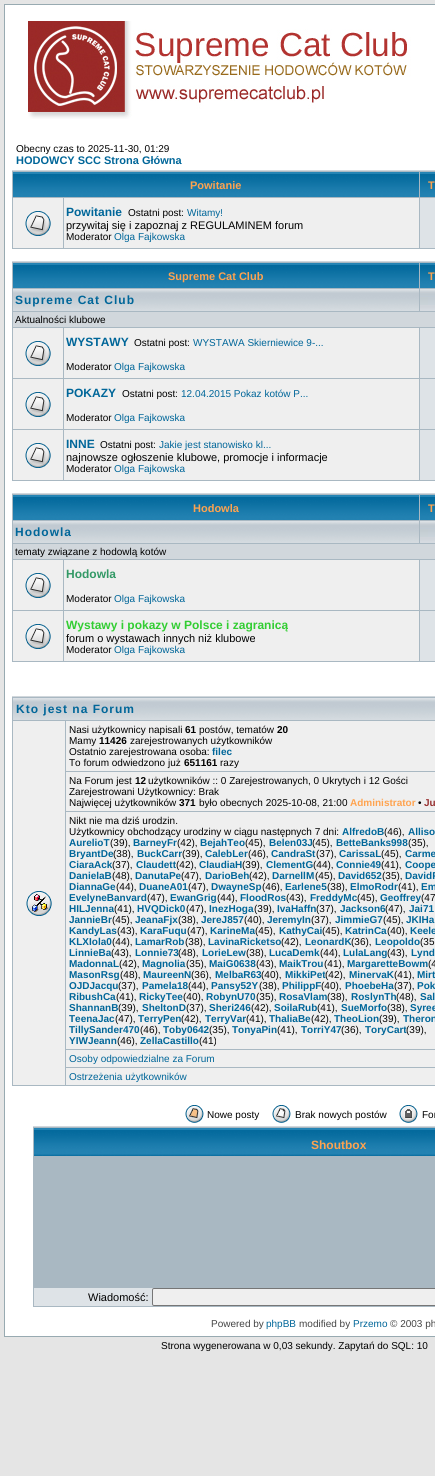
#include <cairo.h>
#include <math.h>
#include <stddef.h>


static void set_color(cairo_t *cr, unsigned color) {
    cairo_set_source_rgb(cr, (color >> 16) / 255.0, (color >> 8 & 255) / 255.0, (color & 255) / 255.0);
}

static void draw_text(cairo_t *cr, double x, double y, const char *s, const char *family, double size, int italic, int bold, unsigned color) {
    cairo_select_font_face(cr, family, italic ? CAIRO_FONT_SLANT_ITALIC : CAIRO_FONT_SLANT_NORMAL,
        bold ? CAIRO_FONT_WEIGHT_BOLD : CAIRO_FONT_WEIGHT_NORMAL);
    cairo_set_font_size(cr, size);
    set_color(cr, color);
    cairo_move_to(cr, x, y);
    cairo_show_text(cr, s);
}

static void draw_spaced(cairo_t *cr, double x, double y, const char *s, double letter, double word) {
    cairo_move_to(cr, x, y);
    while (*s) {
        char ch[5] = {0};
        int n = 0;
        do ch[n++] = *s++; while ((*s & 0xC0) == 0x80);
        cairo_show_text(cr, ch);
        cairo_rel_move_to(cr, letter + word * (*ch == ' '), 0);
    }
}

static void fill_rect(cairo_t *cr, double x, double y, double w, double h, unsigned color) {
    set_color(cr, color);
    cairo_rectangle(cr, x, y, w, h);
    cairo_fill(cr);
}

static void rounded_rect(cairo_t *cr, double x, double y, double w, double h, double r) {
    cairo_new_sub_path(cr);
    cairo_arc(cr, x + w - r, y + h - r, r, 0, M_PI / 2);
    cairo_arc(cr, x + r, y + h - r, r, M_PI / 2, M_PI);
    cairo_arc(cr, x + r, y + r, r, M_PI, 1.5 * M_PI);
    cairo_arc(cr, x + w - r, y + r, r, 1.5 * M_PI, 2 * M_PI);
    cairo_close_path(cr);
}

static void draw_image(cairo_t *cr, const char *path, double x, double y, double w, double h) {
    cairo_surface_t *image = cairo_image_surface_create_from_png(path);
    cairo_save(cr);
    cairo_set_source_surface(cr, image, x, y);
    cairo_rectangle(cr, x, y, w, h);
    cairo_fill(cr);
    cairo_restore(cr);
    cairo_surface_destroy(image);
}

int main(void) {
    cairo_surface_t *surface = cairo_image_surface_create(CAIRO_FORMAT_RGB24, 435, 1476);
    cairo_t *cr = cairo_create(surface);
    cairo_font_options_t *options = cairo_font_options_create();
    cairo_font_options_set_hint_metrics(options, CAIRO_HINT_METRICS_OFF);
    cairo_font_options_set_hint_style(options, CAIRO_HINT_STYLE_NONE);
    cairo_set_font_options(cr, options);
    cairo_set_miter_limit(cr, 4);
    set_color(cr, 0xE5E5E5);
    cairo_paint(cr);
    set_color(cr, 0xFFFFFF);
    cairo_rectangle(cr, 4.5, 4.5, 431, 1332);
    cairo_fill_preserve(cr);
    set_color(cr, 0x98AAB1);
    cairo_set_line_width(cr, 1);
    cairo_stroke(cr);
    draw_image(cr, "assets/img1.png", 28, 21, 383, 98);
    draw_text(cr, 16, 152, "Obecny czas to 2025-11-30, 01:29", "Liberation Sans", 10, 0, 0, 0x000000);
    draw_text(cr, 16, 164, "HODOWCY SCC Strona Główna", "Liberation Sans", 11, 0, 1, 0x006699);
    fill_rect(cr, 12, 171, 423, 78, 0xA9B8C2);
    fill_rect(cr, 12, 170, 423, 1, 0xD1D7DC);
    draw_image(cr, "assets/img2.png", 13, 172, 406, 25);
    draw_text(cr, 190, 189, "Powitanie", "Liberation Sans", 11, 0, 1, 0xFFA34F);
    draw_image(cr, "assets/img3.png", 420, 172, 15, 25);
    draw_text(cr, 428, 189, "T", "Liberation Sans", 11, 0, 1, 0xFFA34F);
    fill_rect(cr, 13, 198, 50, 50, 0xEFEFEF);
    draw_image(cr, "assets/img4.png", 25, 211, 26, 25);
    fill_rect(cr, 64, 198, 355, 50, 0xEFEFEF);
    draw_text(cr, 66, 216, "Powitanie", "Liberation Sans", 12, 0, 1, 0x006699);
    draw_text(cr, 128, 216, "Ostatni post:", "Liberation Sans", 10, 0, 0, 0x000000);
    draw_text(cr, 187, 216, "Witamy!", "Liberation Sans", 10, 0, 0, 0x006699);
    draw_text(cr, 66, 229, "przywitaj się i zapoznaj z REGULAMINEM forum", "Liberation Sans", 11, 0, 0, 0x000000);
    draw_text(cr, 66, 240, "Moderator", "Liberation Sans", 10, 0, 0, 0x000000);
    draw_text(cr, 114, 240, "Olga Fajkowska", "Liberation Sans", 10, 0, 0, 0x006699);
    fill_rect(cr, 420, 198, 15, 50, 0xDEE3E7);
    fill_rect(cr, 12, 262, 423, 219, 0xA9B8C2);
    fill_rect(cr, 12, 261, 423, 1, 0xD1D7DC);
    draw_image(cr, "assets/img2.png", 13, 263, 406, 25);
    draw_text(cr, 168, 280, "Supreme Cat Club", "Liberation Sans", 11, 0, 1, 0xFFA34F);
    draw_image(cr, "assets/img3.png", 420, 263, 15, 25);
    draw_text(cr, 428, 280, "T", "Liberation Sans", 11, 0, 1, 0xFFA34F);
    draw_image(cr, "assets/img5.png", 13, 289, 406, 22);
    cairo_set_font_size(cr, 12);
    set_color(cr, 0x006699);
    draw_spaced(cr, 15, 304, "Supreme Cat Club", 1, 0);
    draw_image(cr, "assets/img6.png", 420, 289, 15, 22);
    fill_rect(cr, 13, 312, 422, 15, 0xD1D7DC);
    draw_text(cr, 15, 323, "Aktualności klubowe", "Liberation Sans", 10, 0, 0, 0x000000);
    fill_rect(cr, 13, 328, 50, 50, 0xEFEFEF);
    draw_image(cr, "assets/img4.png", 25, 341, 26, 25);
    fill_rect(cr, 64, 328, 355, 50, 0xEFEFEF);
    draw_text(cr, 66, 346, "WYSTAWY", "Liberation Sans", 12, 0, 1, 0x006699);
    draw_text(cr, 134, 346, "Ostatni post:", "Liberation Sans", 10, 0, 0, 0x000000);
    draw_text(cr, 193, 346, "WYSTAWA Skierniewice 9-...", "Liberation Sans", 10, 0, 0, 0x006699);
    draw_text(cr, 66, 370, "Moderator", "Liberation Sans", 10, 0, 0, 0x000000);
    draw_text(cr, 114, 370, "Olga Fajkowska", "Liberation Sans", 10, 0, 0, 0x006699);
    fill_rect(cr, 420, 328, 15, 50, 0xDEE3E7);
    fill_rect(cr, 13, 379, 50, 50, 0xEFEFEF);
    draw_image(cr, "assets/img4.png", 25, 392, 26, 25);
    fill_rect(cr, 64, 379, 355, 50, 0xEFEFEF);
    draw_text(cr, 66, 397, "POKAZY", "Liberation Sans", 12, 0, 1, 0x006699);
    draw_text(cr, 122, 397, "Ostatni post:", "Liberation Sans", 10, 0, 0, 0x000000);
    draw_text(cr, 181, 397, "12.04.2015 Pokaz kotów P...", "Liberation Sans", 10, 0, 0, 0x006699);
    draw_text(cr, 66, 421, "Moderator", "Liberation Sans", 10, 0, 0, 0x000000);
    draw_text(cr, 114, 421, "Olga Fajkowska", "Liberation Sans", 10, 0, 0, 0x006699);
    fill_rect(cr, 420, 379, 15, 50, 0xDEE3E7);
    fill_rect(cr, 13, 430, 50, 50, 0xEFEFEF);
    draw_image(cr, "assets/img4.png", 25, 443, 26, 25);
    fill_rect(cr, 64, 430, 355, 50, 0xEFEFEF);
    draw_text(cr, 66, 448, "INNE", "Liberation Sans", 12, 0, 1, 0x006699);
    draw_text(cr, 100, 448, "Ostatni post:", "Liberation Sans", 10, 0, 0, 0x000000);
    draw_text(cr, 159, 448, "Jakie jest stanowisko kl...", "Liberation Sans", 10, 0, 0, 0x006699);
    draw_text(cr, 66, 461, "najnowsze ogłoszenie klubowe, promocje i informacje", "Liberation Sans", 11, 0, 0, 0x000000);
    draw_text(cr, 66, 472, "Moderator", "Liberation Sans", 10, 0, 0, 0x000000);
    draw_text(cr, 114, 472, "Olga Fajkowska", "Liberation Sans", 10, 0, 0, 0x006699);
    fill_rect(cr, 420, 430, 15, 50, 0xDEE3E7);
    fill_rect(cr, 12, 494, 423, 168, 0xA9B8C2);
    fill_rect(cr, 12, 493, 423, 1, 0xD1D7DC);
    draw_image(cr, "assets/img2.png", 13, 495, 406, 25);
    draw_text(cr, 193, 512, "Hodowla", "Liberation Sans", 11, 0, 1, 0xFFA34F);
    draw_image(cr, "assets/img3.png", 420, 495, 15, 25);
    draw_text(cr, 428, 512, "T", "Liberation Sans", 11, 0, 1, 0xFFA34F);
    draw_image(cr, "assets/img5.png", 13, 521, 406, 22);
    cairo_set_font_size(cr, 12);
    set_color(cr, 0x006699);
    draw_spaced(cr, 15, 536, "Hodowla", 1, 0);
    draw_image(cr, "assets/img6.png", 420, 521, 15, 22);
    fill_rect(cr, 13, 544, 422, 15, 0xD1D7DC);
    draw_text(cr, 15, 555, "tematy związane z hodowlą kotów", "Liberation Sans", 10, 0, 0, 0x000000);
    fill_rect(cr, 13, 560, 50, 50, 0xEFEFEF);
    draw_image(cr, "assets/img4.png", 25, 573, 26, 25);
    fill_rect(cr, 64, 560, 355, 50, 0xEFEFEF);
    draw_text(cr, 66, 578, "Hodowla", "Liberation Sans", 12, 0, 1, 0x339966);
    draw_text(cr, 66, 602, "Moderator", "Liberation Sans", 10, 0, 0, 0x000000);
    draw_text(cr, 114, 602, "Olga Fajkowska", "Liberation Sans", 10, 0, 0, 0x006699);
    fill_rect(cr, 420, 560, 15, 50, 0xDEE3E7);
    fill_rect(cr, 13, 611, 50, 50, 0xEFEFEF);
    draw_image(cr, "assets/img4.png", 25, 624, 26, 25);
    fill_rect(cr, 64, 611, 355, 50, 0xEFEFEF);
    draw_text(cr, 66, 629, "Wystawy i pokazy w Polsce i zagranicą", "Liberation Sans", 12, 0, 1, 0x32CD32);
    draw_text(cr, 66, 642, "forum o wystawach innych niż klubowe", "Liberation Sans", 11, 0, 0, 0x000000);
    draw_text(cr, 66, 653, "Moderator", "Liberation Sans", 10, 0, 0, 0x000000);
    draw_text(cr, 114, 653, "Olga Fajkowska", "Liberation Sans", 10, 0, 0, 0x006699);
    fill_rect(cr, 420, 611, 15, 50, 0xDEE3E7);
    fill_rect(cr, 12, 697, 423, 389, 0xA9B8C2);
    fill_rect(cr, 12, 696, 423, 1, 0xD1D7DC);
    draw_image(cr, "assets/img7.png", 13, 698, 422, 22);
    cairo_select_font_face(cr, "Liberation Sans", CAIRO_FONT_SLANT_NORMAL, CAIRO_FONT_WEIGHT_BOLD);
    cairo_set_font_size(cr, 12);
    set_color(cr, 0x006699);
    draw_spaced(cr, 16, 713, "Kto jest na Forum", 1, 0);
    fill_rect(cr, 13, 721, 52, 364, 0xEFEFEF);
    draw_image(cr, "assets/img8.png", 26, 891, 26, 25);
    fill_rect(cr, 66, 721, 369, 50, 0xEFEFEF);
    draw_text(cr, 69, 733, "Nasi użytkownicy napisali", "Liberation Sans", 10, 0, 0, 0x000000);
    draw_text(cr, 185, 733, "61", "Liberation Sans", 10, 0, 1, 0x000000);
    draw_text(cr, 199, 733, "postów, tematów", "Liberation Sans", 10, 0, 0, 0x000000);
    draw_text(cr, 277, 733, "20", "Liberation Sans", 10, 0, 1, 0x000000);
    draw_text(cr, 69, 744, "Mamy", "Liberation Sans", 10, 0, 0, 0x000000);
    draw_text(cr, 99, 744, "11426", "Liberation Sans", 10, 0, 1, 0x000000);
    draw_text(cr, 130, 744, "zarejestrowanych użytkowników", "Liberation Sans", 10, 0, 0, 0x000000);
    draw_text(cr, 69, 755, "Ostatnio zarejestrowana osoba:", "Liberation Sans", 10, 0, 0, 0x000000);
    draw_text(cr, 212, 755, "filec", "Liberation Sans", 10, 0, 1, 0x006699);
    draw_text(cr, 69, 766, "To forum odwiedzono już", "Liberation Sans", 10, 0, 0, 0x000000);
    draw_text(cr, 184, 766, "651161", "Liberation Sans", 10, 0, 1, 0x000000);
    draw_text(cr, 220, 766, "razy", "Liberation Sans", 10, 0, 0, 0x000000);
    fill_rect(cr, 66, 772, 369, 39, 0xEFEFEF);
    draw_text(cr, 69, 784, "Na Forum jest", "Liberation Sans", 10, 0, 0, 0x000000);
    draw_text(cr, 135, 784, "12", "Liberation Sans", 10, 0, 1, 0x000000);
    draw_text(cr, 148, 784, "użytkowników :: 0 Zarejestrowanych, 0 Ukrytych i 12 Gości", "Liberation Sans", 10, 0, 0, 0x000000);
    draw_text(cr, 69, 795, "Zarejestrowani Użytkownicy: Brak", "Liberation Sans", 10, 0, 0, 0x000000);
    draw_text(cr, 69, 806, "Najwięcej użytkowników", "Liberation Sans", 10, 0, 0, 0x000000);
    draw_text(cr, 179, 806, "371", "Liberation Sans", 10, 0, 1, 0x000000);
    draw_text(cr, 199, 806, "było obecnych 2025-10-08, 21:00", "Liberation Sans", 10, 0, 0, 0x000000);
    draw_text(cr, 350, 806, "Administrator", "Liberation Sans", 10, 0, 1, 0xFFA34F);
    draw_text(cr, 418, 806, "•", "Liberation Sans", 10, 0, 0, 0x000000);
    draw_text(cr, 424, 806, "Ju", "Liberation Sans", 10, 0, 1, 0x993333);
    fill_rect(cr, 66, 812, 369, 237, 0xEFEFEF);
    draw_text(cr, 69, 824, "Nikt nie ma dziś urodzin.", "Liberation Sans", 10, 0, 0, 0x000000);
    draw_text(cr, 69, 835, "Użytkownicy obchodzący urodziny w ciągu następnych 7 dni:", "Liberation Sans", 10, 0, 0, 0x000000);
    draw_text(cr, 342, 835, "AlfredoB", "Liberation Sans", 10, 0, 1, 0x006699);
    draw_text(cr, 384, 835, "(46),", "Liberation Sans", 10, 0, 0, 0x000000);
    draw_text(cr, 408, 835, "Alliso", "Liberation Sans", 10, 0, 1, 0x006699);
    draw_text(cr, 69, 846, "AurelioT", "Liberation Sans", 10, 0, 1, 0x006699);
    draw_text(cr, 110, 846, "(39),", "Liberation Sans", 10, 0, 0, 0x000000);
    draw_text(cr, 133, 846, "BarneyFr", "Liberation Sans", 10, 0, 1, 0x006699);
    draw_text(cr, 177, 846, "(42),", "Liberation Sans", 10, 0, 0, 0x000000);
    draw_text(cr, 200, 846, "BejahTeo", "Liberation Sans", 10, 0, 1, 0x006699);
    draw_text(cr, 245, 846, "(45),", "Liberation Sans", 10, 0, 0, 0x000000);
    draw_text(cr, 269, 846, "Belen03J", "Liberation Sans", 10, 0, 1, 0x006699);
    draw_text(cr, 312, 846, "(45),", "Liberation Sans", 10, 0, 0, 0x000000);
    draw_text(cr, 336, 846, "BetteBanks998", "Liberation Sans", 10, 0, 1, 0x006699);
    draw_text(cr, 408, 846, "(35),", "Liberation Sans", 10, 0, 0, 0x000000);
    draw_text(cr, 69, 857, "BryantDe", "Liberation Sans", 10, 0, 1, 0x006699);
    draw_text(cr, 113, 857, "(38),", "Liberation Sans", 10, 0, 0, 0x000000);
    draw_text(cr, 137, 857, "BuckCarr", "Liberation Sans", 10, 0, 1, 0x006699);
    draw_text(cr, 182, 857, "(39),", "Liberation Sans", 10, 0, 0, 0x000000);
    draw_text(cr, 205, 857, "CalebLer", "Liberation Sans", 10, 0, 1, 0x006699);
    draw_text(cr, 248, 857, "(46),", "Liberation Sans", 10, 0, 0, 0x000000);
    draw_text(cr, 271, 857, "CandraSt", "Liberation Sans", 10, 0, 1, 0x006699);
    draw_text(cr, 316, 857, "(37),", "Liberation Sans", 10, 0, 0, 0x000000);
    draw_text(cr, 339, 857, "CarissaL", "Liberation Sans", 10, 0, 1, 0x006699);
    draw_text(cr, 381, 857, "(45),", "Liberation Sans", 10, 0, 0, 0x000000);
    draw_text(cr, 405, 857, "Carme", "Liberation Sans", 10, 0, 1, 0x006699);
    draw_text(cr, 69, 868, "CiaraAck", "Liberation Sans", 10, 0, 1, 0x006699);
    draw_text(cr, 112, 868, "(37),", "Liberation Sans", 10, 0, 0, 0x000000);
    draw_text(cr, 136, 868, "Claudett", "Liberation Sans", 10, 0, 1, 0x006699);
    draw_text(cr, 176, 868, "(42),", "Liberation Sans", 10, 0, 0, 0x000000);
    draw_text(cr, 199, 868, "ClaudiaH", "Liberation Sans", 10, 0, 1, 0x006699);
    draw_text(cr, 242, 868, "(39),", "Liberation Sans", 10, 0, 0, 0x000000);
    draw_text(cr, 266, 868, "ClementG", "Liberation Sans", 10, 0, 1, 0x006699);
    draw_text(cr, 313, 868, "(44),", "Liberation Sans", 10, 0, 0, 0x000000);
    draw_text(cr, 336, 868, "Connie49", "Liberation Sans", 10, 0, 1, 0x006699);
    draw_text(cr, 381, 868, "(41),", "Liberation Sans", 10, 0, 0, 0x000000);
    draw_text(cr, 405, 868, "Coope", "Liberation Sans", 10, 0, 1, 0x006699);
    draw_text(cr, 69, 879, "DanielaB", "Liberation Sans", 10, 0, 1, 0x006699);
    draw_text(cr, 112, 879, "(48),", "Liberation Sans", 10, 0, 0, 0x000000);
    draw_text(cr, 135, 879, "DanutaPe", "Liberation Sans", 10, 0, 1, 0x006699);
    draw_text(cr, 181, 879, "(47),", "Liberation Sans", 10, 0, 0, 0x000000);
    draw_text(cr, 205, 879, "DarioBeh", "Liberation Sans", 10, 0, 1, 0x006699);
    draw_text(cr, 249, 879, "(42),", "Liberation Sans", 10, 0, 0, 0x000000);
    draw_text(cr, 272, 879, "DarnellM", "Liberation Sans", 10, 0, 1, 0x006699);
    draw_text(cr, 315, 879, "(45),", "Liberation Sans", 10, 0, 0, 0x000000);
    draw_text(cr, 338, 879, "David652", "Liberation Sans", 10, 0, 1, 0x006699);
    draw_text(cr, 382, 879, "(35),", "Liberation Sans", 10, 0, 0, 0x000000);
    draw_text(cr, 405, 879, "DavidP", "Liberation Sans", 10, 0, 1, 0x006699);
    draw_text(cr, 69, 890, "DiannaGe", "Liberation Sans", 10, 0, 1, 0x006699);
    draw_text(cr, 116, 890, "(44),", "Liberation Sans", 10, 0, 0, 0x000000);
    draw_text(cr, 139, 890, "DuaneA01", "Liberation Sans", 10, 0, 1, 0x006699);
    draw_text(cr, 188, 890, "(47),", "Liberation Sans", 10, 0, 0, 0x000000);
    draw_text(cr, 211, 890, "DwayneSp", "Liberation Sans", 10, 0, 1, 0x006699);
    draw_text(cr, 262, 890, "(46),", "Liberation Sans", 10, 0, 0, 0x000000);
    draw_text(cr, 285, 890, "Earlene5", "Liberation Sans", 10, 0, 1, 0x006699);
    draw_text(cr, 327, 890, "(38),", "Liberation Sans", 10, 0, 0, 0x000000);
    draw_text(cr, 350, 890, "ElmoRodr", "Liberation Sans", 10, 0, 1, 0x006699);
    draw_text(cr, 398, 890, "(41),", "Liberation Sans", 10, 0, 0, 0x000000);
    draw_text(cr, 421, 890, "Em", "Liberation Sans", 10, 0, 1, 0x006699);
    draw_text(cr, 69, 901, "EvelyneBanvard", "Liberation Sans", 10, 0, 1, 0x006699);
    draw_text(cr, 147, 901, "(47),", "Liberation Sans", 10, 0, 0, 0x000000);
    draw_text(cr, 170, 901, "EwanGrig", "Liberation Sans", 10, 0, 1, 0x006699);
    draw_text(cr, 217, 901, "(44),", "Liberation Sans", 10, 0, 0, 0x000000);
    draw_text(cr, 240, 901, "FloodRos", "Liberation Sans", 10, 0, 1, 0x006699);
    draw_text(cr, 286, 901, "(43),", "Liberation Sans", 10, 0, 0, 0x000000);
    draw_text(cr, 310, 901, "FreddyMc", "Liberation Sans", 10, 0, 1, 0x006699);
    draw_text(cr, 357, 901, "(45),", "Liberation Sans", 10, 0, 0, 0x000000);
    draw_text(cr, 380, 901, "Geoffrey", "Liberation Sans", 10, 0, 1, 0x006699);
    draw_text(cr, 421, 901, "(47", "Liberation Sans", 10, 0, 0, 0x000000);
    draw_text(cr, 69, 912, "HILJenna", "Liberation Sans", 10, 0, 1, 0x006699);
    draw_text(cr, 114, 912, "(41),", "Liberation Sans", 10, 0, 0, 0x000000);
    draw_text(cr, 137, 912, "HVQDick0", "Liberation Sans", 10, 0, 1, 0x006699);
    draw_text(cr, 186, 912, "(47),", "Liberation Sans", 10, 0, 0, 0x000000);
    draw_text(cr, 209, 912, "InezHoga", "Liberation Sans", 10, 0, 1, 0x006699);
    draw_text(cr, 254, 912, "(39),", "Liberation Sans", 10, 0, 0, 0x000000);
    draw_text(cr, 277, 912, "IvaHaffn", "Liberation Sans", 10, 0, 1, 0x006699);
    draw_text(cr, 316, 912, "(37),", "Liberation Sans", 10, 0, 0, 0x000000);
    draw_text(cr, 340, 912, "Jackson6", "Liberation Sans", 10, 0, 1, 0x006699);
    draw_text(cr, 385, 912, "(47),", "Liberation Sans", 10, 0, 0, 0x000000);
    draw_text(cr, 409, 912, "Jai71", "Liberation Sans", 10, 0, 1, 0x006699);
    draw_text(cr, 69, 923, "JannieBr", "Liberation Sans", 10, 0, 1, 0x006699);
    draw_text(cr, 112, 923, "(45),", "Liberation Sans", 10, 0, 0, 0x000000);
    draw_text(cr, 135, 923, "JeanaFjx", "Liberation Sans", 10, 0, 1, 0x006699);
    draw_text(cr, 178, 923, "(38),", "Liberation Sans", 10, 0, 0, 0x000000);
    draw_text(cr, 201, 923, "JereJ857", "Liberation Sans", 10, 0, 1, 0x006699);
    draw_text(cr, 244, 923, "(40),", "Liberation Sans", 10, 0, 0, 0x000000);
    draw_text(cr, 267, 923, "JeremyIn", "Liberation Sans", 10, 0, 1, 0x006699);
    draw_text(cr, 311, 923, "(37),", "Liberation Sans", 10, 0, 0, 0x000000);
    draw_text(cr, 335, 923, "JimmieG7", "Liberation Sans", 10, 0, 1, 0x006699);
    draw_text(cr, 383, 923, "(45),", "Liberation Sans", 10, 0, 0, 0x000000);
    draw_text(cr, 406, 923, "JKIHa", "Liberation Sans", 10, 0, 1, 0x006699);
    draw_text(cr, 69, 934, "KandyLas", "Liberation Sans", 10, 0, 1, 0x006699);
    draw_text(cr, 117, 934, "(43),", "Liberation Sans", 10, 0, 0, 0x000000);
    draw_text(cr, 140, 934, "KaraFuqu", "Liberation Sans", 10, 0, 1, 0x006699);
    draw_text(cr, 187, 934, "(47),", "Liberation Sans", 10, 0, 0, 0x000000);
    draw_text(cr, 210, 934, "KarineMa", "Liberation Sans", 10, 0, 1, 0x006699);
    draw_text(cr, 255, 934, "(45),", "Liberation Sans", 10, 0, 0, 0x000000);
    draw_text(cr, 279, 934, "KathyCai", "Liberation Sans", 10, 0, 1, 0x006699);
    draw_text(cr, 322, 934, "(45),", "Liberation Sans", 10, 0, 0, 0x000000);
    draw_text(cr, 345, 934, "KatrinCa", "Liberation Sans", 10, 0, 1, 0x006699);
    draw_text(cr, 387, 934, "(40),", "Liberation Sans", 10, 0, 0, 0x000000);
    draw_text(cr, 410, 934, "Keele", "Liberation Sans", 10, 0, 1, 0x006699);
    draw_text(cr, 69, 945, "KLXIola0", "Liberation Sans", 10, 0, 1, 0x006699);
    draw_text(cr, 112, 945, "(44),", "Liberation Sans", 10, 0, 0, 0x000000);
    draw_text(cr, 135, 945, "LamarRob", "Liberation Sans", 10, 0, 1, 0x006699);
    draw_text(cr, 185, 945, "(38),", "Liberation Sans", 10, 0, 0, 0x000000);
    draw_text(cr, 208, 945, "LavinaRicketso", "Liberation Sans", 10, 0, 1, 0x006699);
    draw_text(cr, 281, 945, "(42),", "Liberation Sans", 10, 0, 0, 0x000000);
    draw_text(cr, 305, 945, "LeonardK", "Liberation Sans", 10, 0, 1, 0x006699);
    draw_text(cr, 351, 945, "(36),", "Liberation Sans", 10, 0, 0, 0x000000);
    draw_text(cr, 375, 945, "Leopoldo", "Liberation Sans", 10, 0, 1, 0x006699);
    draw_text(cr, 420, 945, "(35", "Liberation Sans", 10, 0, 0, 0x000000);
    draw_text(cr, 69, 956, "LinnieBa", "Liberation Sans", 10, 0, 1, 0x006699);
    draw_text(cr, 111, 956, "(43),", "Liberation Sans", 10, 0, 0, 0x000000);
    draw_text(cr, 135, 956, "Lonnie73", "Liberation Sans", 10, 0, 1, 0x006699);
    draw_text(cr, 178, 956, "(48),", "Liberation Sans", 10, 0, 0, 0x000000);
    draw_text(cr, 202, 956, "LorieLew", "Liberation Sans", 10, 0, 1, 0x006699);
    draw_text(cr, 246, 956, "(38),", "Liberation Sans", 10, 0, 0, 0x000000);
    draw_text(cr, 269, 956, "LucaDemk", "Liberation Sans", 10, 0, 1, 0x006699);
    draw_text(cr, 320, 956, "(44),", "Liberation Sans", 10, 0, 0, 0x000000);
    draw_text(cr, 343, 956, "LulaLang", "Liberation Sans", 10, 0, 1, 0x006699);
    draw_text(cr, 387, 956, "(43),", "Liberation Sans", 10, 0, 0, 0x000000);
    draw_text(cr, 411, 956, "Lynd", "Liberation Sans", 10, 0, 1, 0x006699);
    draw_text(cr, 69, 967, "MadonnaL", "Liberation Sans", 10, 0, 1, 0x006699);
    draw_text(cr, 119, 967, "(42),", "Liberation Sans", 10, 0, 0, 0x000000);
    draw_text(cr, 142, 967, "Magnolia", "Liberation Sans", 10, 0, 1, 0x006699);
    draw_text(cr, 186, 967, "(35),", "Liberation Sans", 10, 0, 0, 0x000000);
    draw_text(cr, 209, 967, "MaiG0638", "Liberation Sans", 10, 0, 1, 0x006699);
    draw_text(cr, 256, 967, "(43),", "Liberation Sans", 10, 0, 0, 0x000000);
    draw_text(cr, 279, 967, "MaikTrou", "Liberation Sans", 10, 0, 1, 0x006699);
    draw_text(cr, 324, 967, "(41),", "Liberation Sans", 10, 0, 0, 0x000000);
    draw_text(cr, 347, 967, "MargaretteBowm", "Liberation Sans", 10, 0, 1, 0x006699);
    draw_text(cr, 428, 967, "(4", "Liberation Sans", 10, 0, 0, 0x000000);
    draw_text(cr, 69, 978, "MasonRsg", "Liberation Sans", 10, 0, 1, 0x006699);
    draw_text(cr, 120, 978, "(48),", "Liberation Sans", 10, 0, 0, 0x000000);
    draw_text(cr, 143, 978, "MaureenN", "Liberation Sans", 10, 0, 1, 0x006699);
    draw_text(cr, 191, 978, "(36),", "Liberation Sans", 10, 0, 0, 0x000000);
    draw_text(cr, 215, 978, "MelbaR63", "Liberation Sans", 10, 0, 1, 0x006699);
    draw_text(cr, 261, 978, "(40),", "Liberation Sans", 10, 0, 0, 0x000000);
    draw_text(cr, 285, 978, "MikkiPet", "Liberation Sans", 10, 0, 1, 0x006699);
    draw_text(cr, 325, 978, "(42),", "Liberation Sans", 10, 0, 0, 0x000000);
    draw_text(cr, 349, 978, "MinervaK", "Liberation Sans", 10, 0, 1, 0x006699);
    draw_text(cr, 394, 978, "(41),", "Liberation Sans", 10, 0, 0, 0x000000);
    draw_text(cr, 417, 978, "Mirt", "Liberation Sans", 10, 0, 1, 0x006699);
    draw_text(cr, 69, 989, "OJDJacqu", "Liberation Sans", 10, 0, 1, 0x006699);
    draw_text(cr, 118, 989, "(37),", "Liberation Sans", 10, 0, 0, 0x000000);
    draw_text(cr, 142, 989, "Pamela18", "Liberation Sans", 10, 0, 1, 0x006699);
    draw_text(cr, 188, 989, "(44),", "Liberation Sans", 10, 0, 0, 0x000000);
    draw_text(cr, 211, 989, "Pansy52Y", "Liberation Sans", 10, 0, 1, 0x006699);
    draw_text(cr, 259, 989, "(38),", "Liberation Sans", 10, 0, 0, 0x000000);
    draw_text(cr, 282, 989, "PhilippF", "Liberation Sans", 10, 0, 1, 0x006699);
    draw_text(cr, 321, 989, "(40),", "Liberation Sans", 10, 0, 0, 0x000000);
    draw_text(cr, 345, 989, "PhoebeHa", "Liberation Sans", 10, 0, 1, 0x006699);
    draw_text(cr, 394, 989, "(37),", "Liberation Sans", 10, 0, 0, 0x000000);
    draw_text(cr, 417, 989, "Pok", "Liberation Sans", 10, 0, 1, 0x006699);
    draw_text(cr, 69, 1000, "RibushCa", "Liberation Sans", 10, 0, 1, 0x006699);
    draw_text(cr, 116, 1000, "(41),", "Liberation Sans", 10, 0, 0, 0x000000);
    draw_text(cr, 139, 1000, "RickyTee", "Liberation Sans", 10, 0, 1, 0x006699);
    draw_text(cr, 183, 1000, "(40),", "Liberation Sans", 10, 0, 0, 0x000000);
    draw_text(cr, 206, 1000, "RobynU70", "Liberation Sans", 10, 0, 1, 0x006699);
    draw_text(cr, 256, 1000, "(35),", "Liberation Sans", 10, 0, 0, 0x000000);
    draw_text(cr, 279, 1000, "RosaVlam", "Liberation Sans", 10, 0, 1, 0x006699);
    draw_text(cr, 327, 1000, "(38),", "Liberation Sans", 10, 0, 0, 0x000000);
    draw_text(cr, 351, 1000, "RoslynTh", "Liberation Sans", 10, 0, 1, 0x006699);
    draw_text(cr, 396, 1000, "(48),", "Liberation Sans", 10, 0, 0, 0x000000);
    draw_text(cr, 420, 1000, "Sal", "Liberation Sans", 10, 0, 1, 0x006699);
    draw_text(cr, 69, 1011, "ShannanB", "Liberation Sans", 10, 0, 1, 0x006699);
    draw_text(cr, 118, 1011, "(39),", "Liberation Sans", 10, 0, 0, 0x000000);
    draw_text(cr, 142, 1011, "SheltonD", "Liberation Sans", 10, 0, 1, 0x006699);
    draw_text(cr, 186, 1011, "(37),", "Liberation Sans", 10, 0, 0, 0x000000);
    draw_text(cr, 209, 1011, "Sheri246", "Liberation Sans", 10, 0, 1, 0x006699);
    draw_text(cr, 251, 1011, "(42),", "Liberation Sans", 10, 0, 0, 0x000000);
    draw_text(cr, 274, 1011, "SoilaRub", "Liberation Sans", 10, 0, 1, 0x006699);
    draw_text(cr, 317, 1011, "(41),", "Liberation Sans", 10, 0, 0, 0x000000);
    draw_text(cr, 341, 1011, "SueMorfo", "Liberation Sans", 10, 0, 1, 0x006699);
    draw_text(cr, 387, 1011, "(38),", "Liberation Sans", 10, 0, 0, 0x000000);
    draw_text(cr, 410, 1011, "Syree", "Liberation Sans", 10, 0, 1, 0x006699);
    draw_text(cr, 69, 1022, "TeenaJac", "Liberation Sans", 10, 0, 1, 0x006699);
    draw_text(cr, 115, 1022, "(47),", "Liberation Sans", 10, 0, 0, 0x000000);
    draw_text(cr, 138, 1022, "TerryPen", "Liberation Sans", 10, 0, 1, 0x006699);
    draw_text(cr, 181, 1022, "(42),", "Liberation Sans", 10, 0, 0, 0x000000);
    draw_text(cr, 205, 1022, "TerryVar", "Liberation Sans", 10, 0, 1, 0x006699);
    draw_text(cr, 246, 1022, "(41),", "Liberation Sans", 10, 0, 0, 0x000000);
    draw_text(cr, 269, 1022, "ThaliaBe", "Liberation Sans", 10, 0, 1, 0x006699);
    draw_text(cr, 311, 1022, "(42),", "Liberation Sans", 10, 0, 0, 0x000000);
    draw_text(cr, 334, 1022, "TheoLion", "Liberation Sans", 10, 0, 1, 0x006699);
    draw_text(cr, 379, 1022, "(39),", "Liberation Sans", 10, 0, 0, 0x000000);
    draw_text(cr, 403, 1022, "Theron", "Liberation Sans", 10, 0, 1, 0x006699);
    draw_text(cr, 69, 1033, "TillySander470", "Liberation Sans", 10, 0, 1, 0x006699);
    draw_text(cr, 140, 1033, "(46),", "Liberation Sans", 10, 0, 0, 0x000000);
    draw_text(cr, 163, 1033, "Toby0642", "Liberation Sans", 10, 0, 1, 0x006699);
    draw_text(cr, 209, 1033, "(35),", "Liberation Sans", 10, 0, 0, 0x000000);
    draw_text(cr, 232, 1033, "TonyaPin", "Liberation Sans", 10, 0, 1, 0x006699);
    draw_text(cr, 277, 1033, "(41),", "Liberation Sans", 10, 0, 0, 0x000000);
    draw_text(cr, 301, 1033, "TorriY47", "Liberation Sans", 10, 0, 1, 0x006699);
    draw_text(cr, 341, 1033, "(36),", "Liberation Sans", 10, 0, 0, 0x000000);
    draw_text(cr, 365, 1033, "ToryCart", "Liberation Sans", 10, 0, 1, 0x006699);
    draw_text(cr, 406, 1033, "(39),", "Liberation Sans", 10, 0, 0, 0x000000);
    draw_text(cr, 69, 1044, "YIWJeann", "Liberation Sans", 10, 0, 1, 0x006699);
    draw_text(cr, 117, 1044, "(46),", "Liberation Sans", 10, 0, 0, 0x000000);
    draw_text(cr, 140, 1044, "ZellaCastillo", "Liberation Sans", 10, 0, 1, 0x006699);
    draw_text(cr, 199, 1044, "(41)", "Liberation Sans", 10, 0, 0, 0x000000);
    fill_rect(cr, 66, 1050, 369, 17, 0xEFEFEF);
    draw_text(cr, 69, 1062, "Osoby odpowiedzialne za Forum", "Liberation Sans", 10, 0, 0, 0x006699);
    fill_rect(cr, 66, 1068, 369, 17, 0xEFEFEF);
    draw_text(cr, 69, 1080, "Ostrzeżenia użytkowników", "Liberation Sans", 10, 0, 0, 0x006699);
    draw_image(cr, "assets/img9.png", 185, 1105, 19, 18);
    draw_text(cr, 207, 1118, "Nowe posty", "Liberation Sans", 10, 0, 0, 0x000000);
    draw_image(cr, "assets/img10.png", 272, 1105, 19, 18);
    draw_text(cr, 295, 1118, "Brak nowych postów", "Liberation Sans", 10, 0, 0, 0x000000);
    draw_image(cr, "assets/img11.png", 399, 1105, 19, 18);
    draw_text(cr, 422, 1118, "For", "Liberation Sans", 10, 0, 0, 0x000000);
    fill_rect(cr, 33, 1127, 402, 180, 0xA9B8C2);
    fill_rect(cr, 33, 1126, 402, 1, 0xD1D7DC);
    draw_image(cr, "assets/img12.png", 34, 1128, 401, 28);
    draw_text(cr, 311, 1149, "Shoutbox", "Liberation Sans", 12, 0, 1, 0xFFA34F);
    fill_rect(cr, 34, 1288, 120, 18, 0xDEE3E7);
    draw_text(cr, 88, 1301, "Wiadomość:", "Liberation Sans", 11, 0, 0, 0x000000);
    set_color(cr, 0xEFEFEF);
    rounded_rect(cr, 152.5, 1288.5, 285, 17, 1.5);
    cairo_fill_preserve(cr);
    set_color(cr, 0x767676);
    cairo_stroke(cr);
    draw_text(cr, 211, 1327, "Powered by", "Liberation Sans", 10, 0, 0, 0x444444);
    draw_text(cr, 266, 1327, "phpBB", "Liberation Sans", 10, 0, 0, 0x006699);
    draw_text(cr, 299, 1327, "modified by", "Liberation Sans", 10, 0, 0, 0x444444);
    draw_text(cr, 353, 1327, "Przemo", "Liberation Sans", 10, 0, 0, 0x006699);
    draw_text(cr, 390, 1327, "© 2003 ph", "Liberation Sans", 10, 0, 0, 0x444444);
    draw_text(cr, 161, 1349, "Strona wygenerowana w 0,03 sekundy. Zapytań do SQL: 10", "Liberation Sans", 10, 0, 0, 0x000000);
    cairo_surface_write_to_png(surface, "output.png");
    cairo_font_options_destroy(options);
    cairo_destroy(cr);
    cairo_surface_destroy(surface);
    return 0;
}
